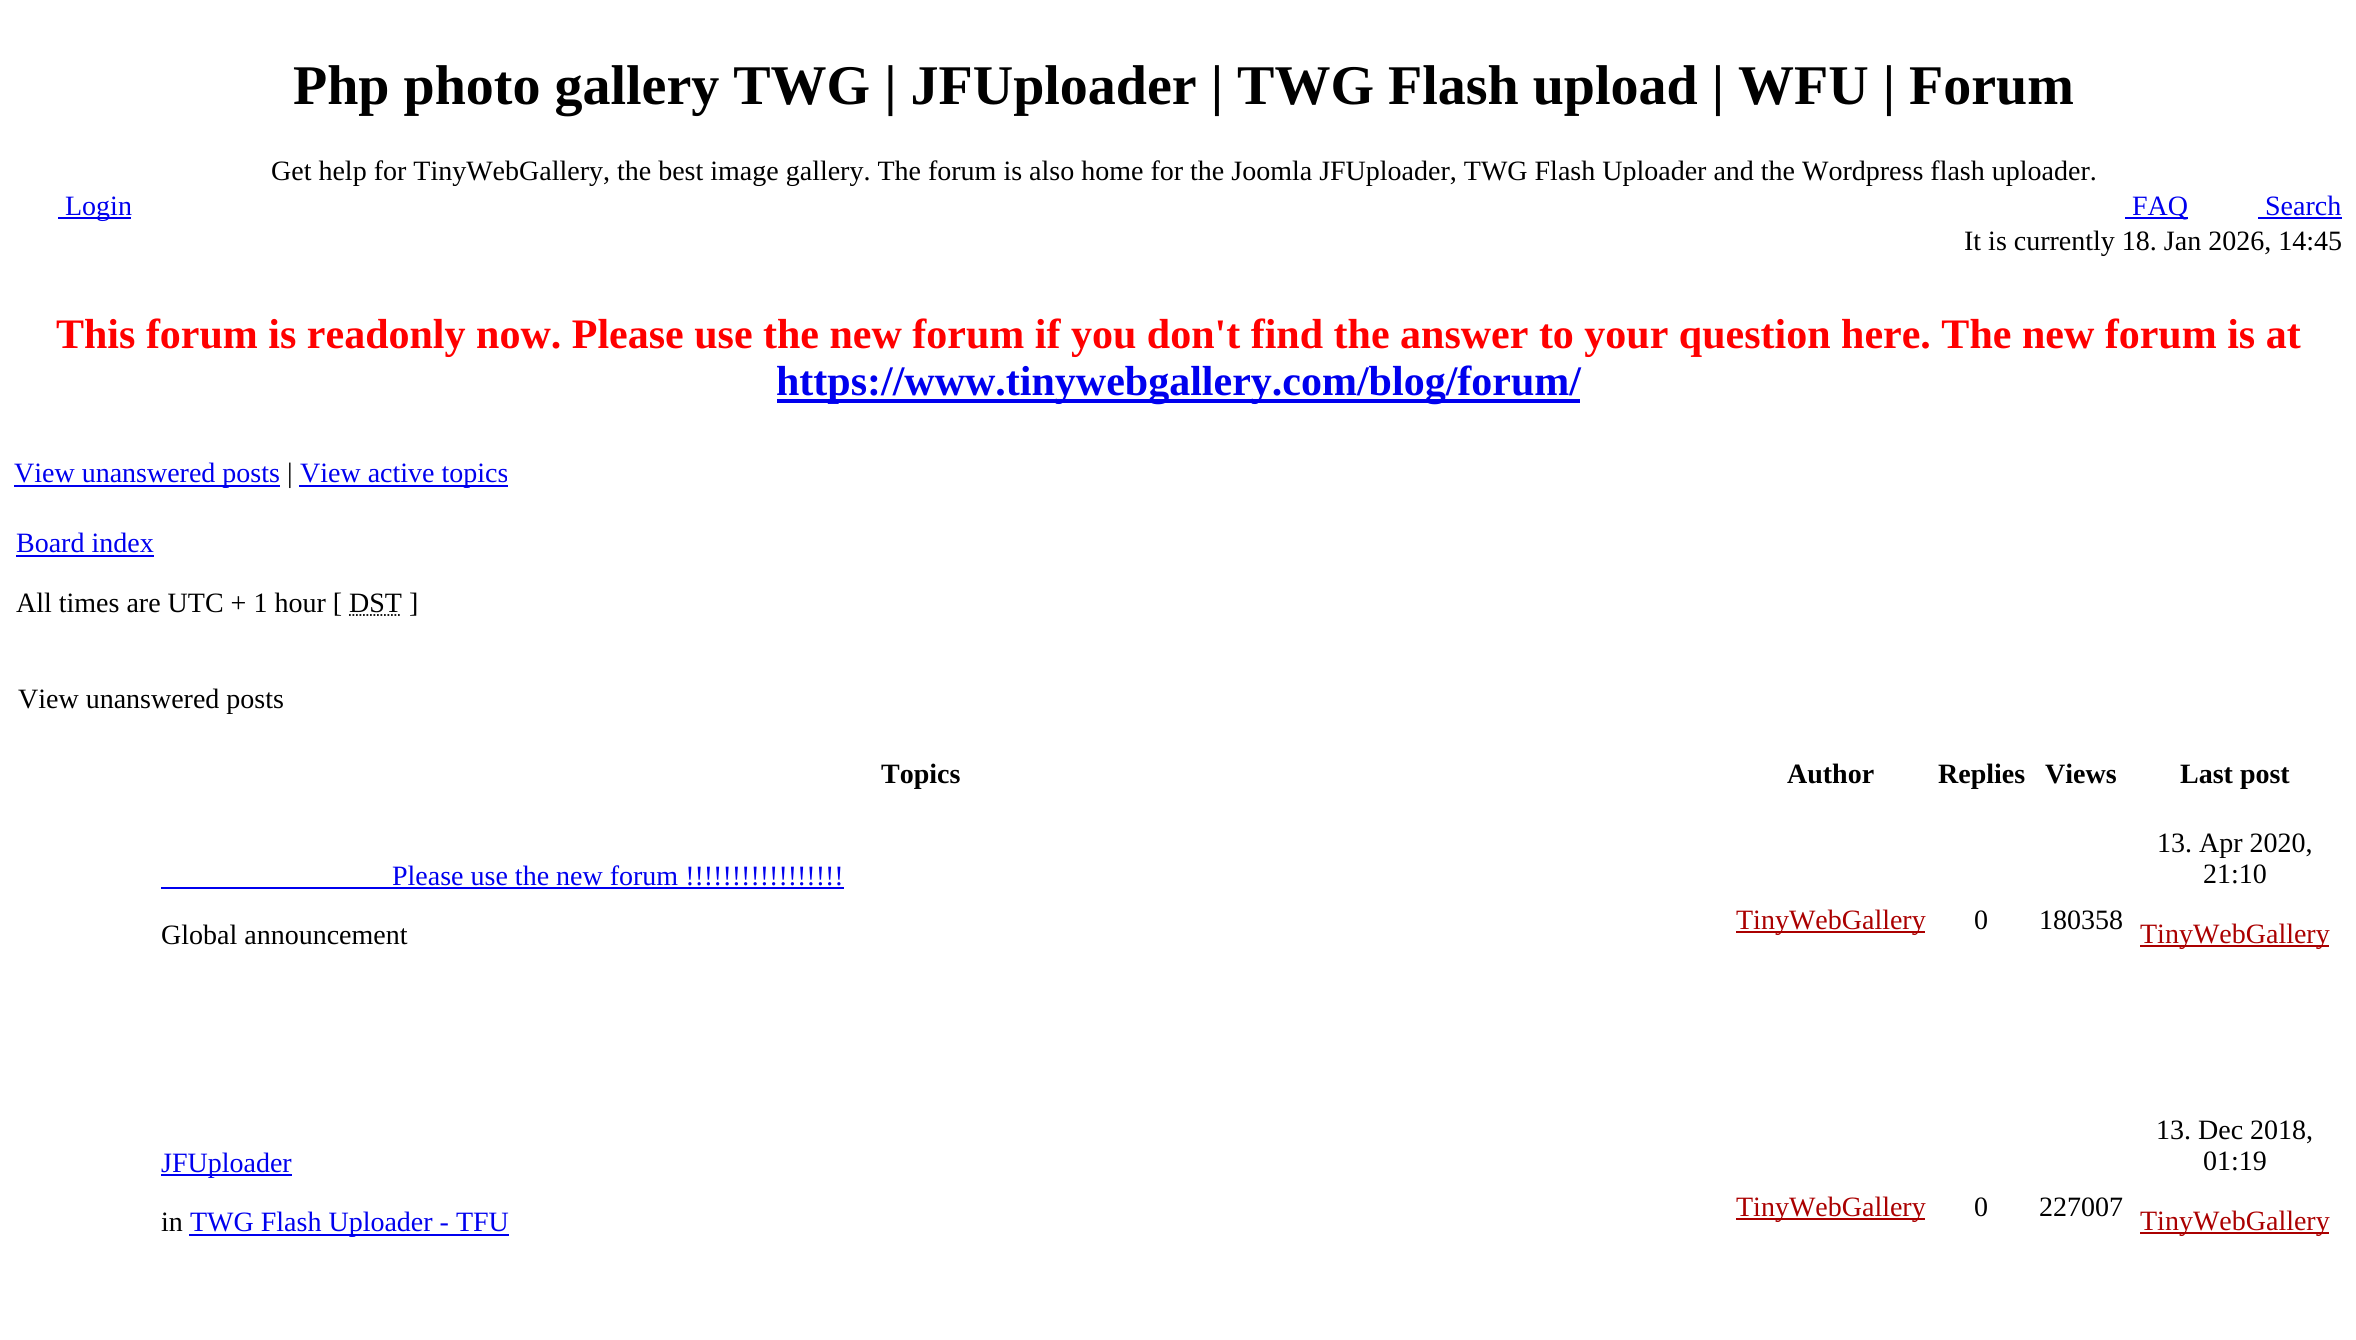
#include <cairo.h>
#include <math.h>
#include <stddef.h>


static void set_color(cairo_t *cr, unsigned color) {
    cairo_set_source_rgb(cr, (color >> 16) / 255.0, (color >> 8 & 255) / 255.0, (color & 255) / 255.0);
}

static void draw_text(cairo_t *cr, double x, double y, const char *s, const char *family, double size, int italic, int bold, unsigned color) {
    cairo_select_font_face(cr, family, italic ? CAIRO_FONT_SLANT_ITALIC : CAIRO_FONT_SLANT_NORMAL,
        bold ? CAIRO_FONT_WEIGHT_BOLD : CAIRO_FONT_WEIGHT_NORMAL);
    cairo_set_font_size(cr, size);
    set_color(cr, color);
    cairo_move_to(cr, x, y);
    cairo_show_text(cr, s);
}

static void fill_rect(cairo_t *cr, double x, double y, double w, double h, unsigned color) {
    set_color(cr, color);
    cairo_rectangle(cr, x, y, w, h);
    cairo_fill(cr);
}

int main(void) {
    cairo_surface_t *surface = cairo_image_surface_create(CAIRO_FORMAT_RGB24, 2356, 1340);
    cairo_t *cr = cairo_create(surface);
    cairo_font_options_t *options = cairo_font_options_create();
    cairo_font_options_set_hint_metrics(options, CAIRO_HINT_METRICS_OFF);
    cairo_font_options_set_hint_style(options, CAIRO_HINT_STYLE_NONE);
    cairo_set_font_options(cr, options);
    cairo_set_miter_limit(cr, 4);
    set_color(cr, 0xFFFFFF);
    cairo_paint(cr);
    draw_text(cr, 293, 104, "Php photo gallery TWG | JFUploader | TWG Flash upload | WFU | Forum", "Liberation Serif", 56, 0, 1, 0x000000);
    draw_text(cr, 271, 180, "Get help for TinyWebGallery, the best image gallery. The forum is also home for the Joomla JFUploader, TWG Flash Uploader and the Wordpress flash uploader.", "Liberation Serif", 28, 0, 0, 0x000000);
    fill_rect(cr, 58, 217, 73, 2, 0x0000EE);
    draw_text(cr, 65, 215, "Login", "Liberation Serif", 28, 0, 0, 0x0000EE);
    fill_rect(cr, 2125, 217, 63, 2, 0x0000EE);
    draw_text(cr, 2132, 215, "FAQ", "Liberation Serif", 28, 0, 0, 0x0000EE);
    draw_text(cr, 2265, 215, "Search", "Liberation Serif", 28, 0, 0, 0x0000EE);
    fill_rect(cr, 2258, 217, 84, 2, 0x0000EE);
    draw_text(cr, 1964, 250, "It is currently 18. Jan 2026, 14:45", "Liberation Serif", 28, 0, 0, 0x000000);
    draw_text(cr, 56, 348, "This forum is readonly now. Please use the new forum if you don't find the answer to your question here. The new forum is at", "Liberation Serif", 42, 0, 1, 0xFF0000);
    fill_rect(cr, 777, 399, 803, 4, 0x0000EE);
    draw_text(cr, 776, 395, "https://www.tinywebgallery.com/blog/forum/", "Liberation Serif", 42, 0, 1, 0x0000EE);
    fill_rect(cr, 14, 485, 266, 2, 0x0000EE);
    draw_text(cr, 14, 482, "View unanswered posts", "Liberation Serif", 28, 0, 0, 0x0000EE);
    draw_text(cr, 287, 482, "|", "Liberation Serif", 28, 0, 0, 0x000000);
    fill_rect(cr, 299, 485, 209, 2, 0x0000EE);
    draw_text(cr, 300, 482, "View active topics", "Liberation Serif", 28, 0, 0, 0x0000EE);
    draw_text(cr, 16, 552, "Board index", "Liberation Serif", 28, 0, 0, 0x0000EE);
    fill_rect(cr, 16, 555, 138, 2, 0x0000EE);
    draw_text(cr, 16, 612, "All times are UTC + 1 hour [ DST ]", "Liberation Serif", 28, 0, 0, 0x000000);
    cairo_new_path(cr);
    cairo_move_to(cr, 349, 615);
    cairo_line_to(cr, 401.5, 615);
    cairo_set_line_width(cr, 1.8);
    cairo_set_dash(cr, (double[]){1.75, 1.75}, 2, 0);
    cairo_stroke(cr);
    draw_text(cr, 18, 708, "View unanswered posts", "Liberation Serif", 28, 0, 0, 0x000000);
    draw_text(cr, 881, 783, "Topics", "Liberation Serif", 28, 0, 1, 0x000000);
    draw_text(cr, 1787, 783, "Author", "Liberation Serif", 28, 0, 1, 0x000000);
    draw_text(cr, 1938, 783, "Replies", "Liberation Serif", 28, 0, 1, 0x000000);
    draw_text(cr, 2045, 783, "Views", "Liberation Serif", 28, 0, 1, 0x000000);
    draw_text(cr, 2180, 783, "Last post", "Liberation Serif", 28, 0, 1, 0x000000);
    draw_text(cr, 392, 885, "Please use the new forum !!!!!!!!!!!!!!!!!", "Liberation Serif", 28, 0, 0, 0x0000EE);
    fill_rect(cr, 161, 887, 683, 2, 0x0000EE);
    draw_text(cr, 161, 944, "Global announcement", "Liberation Serif", 28, 0, 0, 0x000000);
    fill_rect(cr, 1736, 931, 189, 2, 0xAA0000);
    draw_text(cr, 1736, 929, "TinyWebGallery", "Liberation Serif", 28, 0, 0, 0xAA0000);
    draw_text(cr, 1974, 929, "0", "Liberation Serif", 28, 0, 0, 0x000000);
    draw_text(cr, 2039, 929, "180358", "Liberation Serif", 28, 0, 0, 0x000000);
    draw_text(cr, 2157, 852, "13. Apr 2020,", "Liberation Serif", 28, 0, 0, 0x000000);
    draw_text(cr, 2203, 883, "21:10", "Liberation Serif", 28, 0, 0, 0x000000);
    fill_rect(cr, 2140, 945, 189, 2, 0xAA0000);
    draw_text(cr, 2140, 943, "TinyWebGallery", "Liberation Serif", 28, 0, 0, 0xAA0000);
    fill_rect(cr, 161, 1174, 131, 2, 0x0000EE);
    draw_text(cr, 161, 1172, "JFUploader", "Liberation Serif", 28, 0, 0, 0x0000EE);
    draw_text(cr, 161, 1231, "in", "Liberation Serif", 28, 0, 0, 0x000000);
    fill_rect(cr, 189, 1234, 320, 2, 0x0000EE);
    draw_text(cr, 190, 1231, "TWG Flash Uploader - TFU", "Liberation Serif", 28, 0, 0, 0x0000EE);
    fill_rect(cr, 1736, 1218, 189, 2, 0xAA0000);
    draw_text(cr, 1736, 1216, "TinyWebGallery", "Liberation Serif", 28, 0, 0, 0xAA0000);
    draw_text(cr, 1974, 1216, "0", "Liberation Serif", 28, 0, 0, 0x000000);
    draw_text(cr, 2039, 1216, "227007", "Liberation Serif", 28, 0, 0, 0x000000);
    draw_text(cr, 2156, 1139, "13. Dec 2018,", "Liberation Serif", 28, 0, 0, 0x000000);
    draw_text(cr, 2203, 1170, "01:19", "Liberation Serif", 28, 0, 0, 0x000000);
    fill_rect(cr, 2140, 1232, 189, 2, 0xAA0000);
    draw_text(cr, 2140, 1230, "TinyWebGallery", "Liberation Serif", 28, 0, 0, 0xAA0000);
    cairo_surface_write_to_png(surface, "output.png");
    cairo_font_options_destroy(options);
    cairo_destroy(cr);
    cairo_surface_destroy(surface);
    return 0;
}
